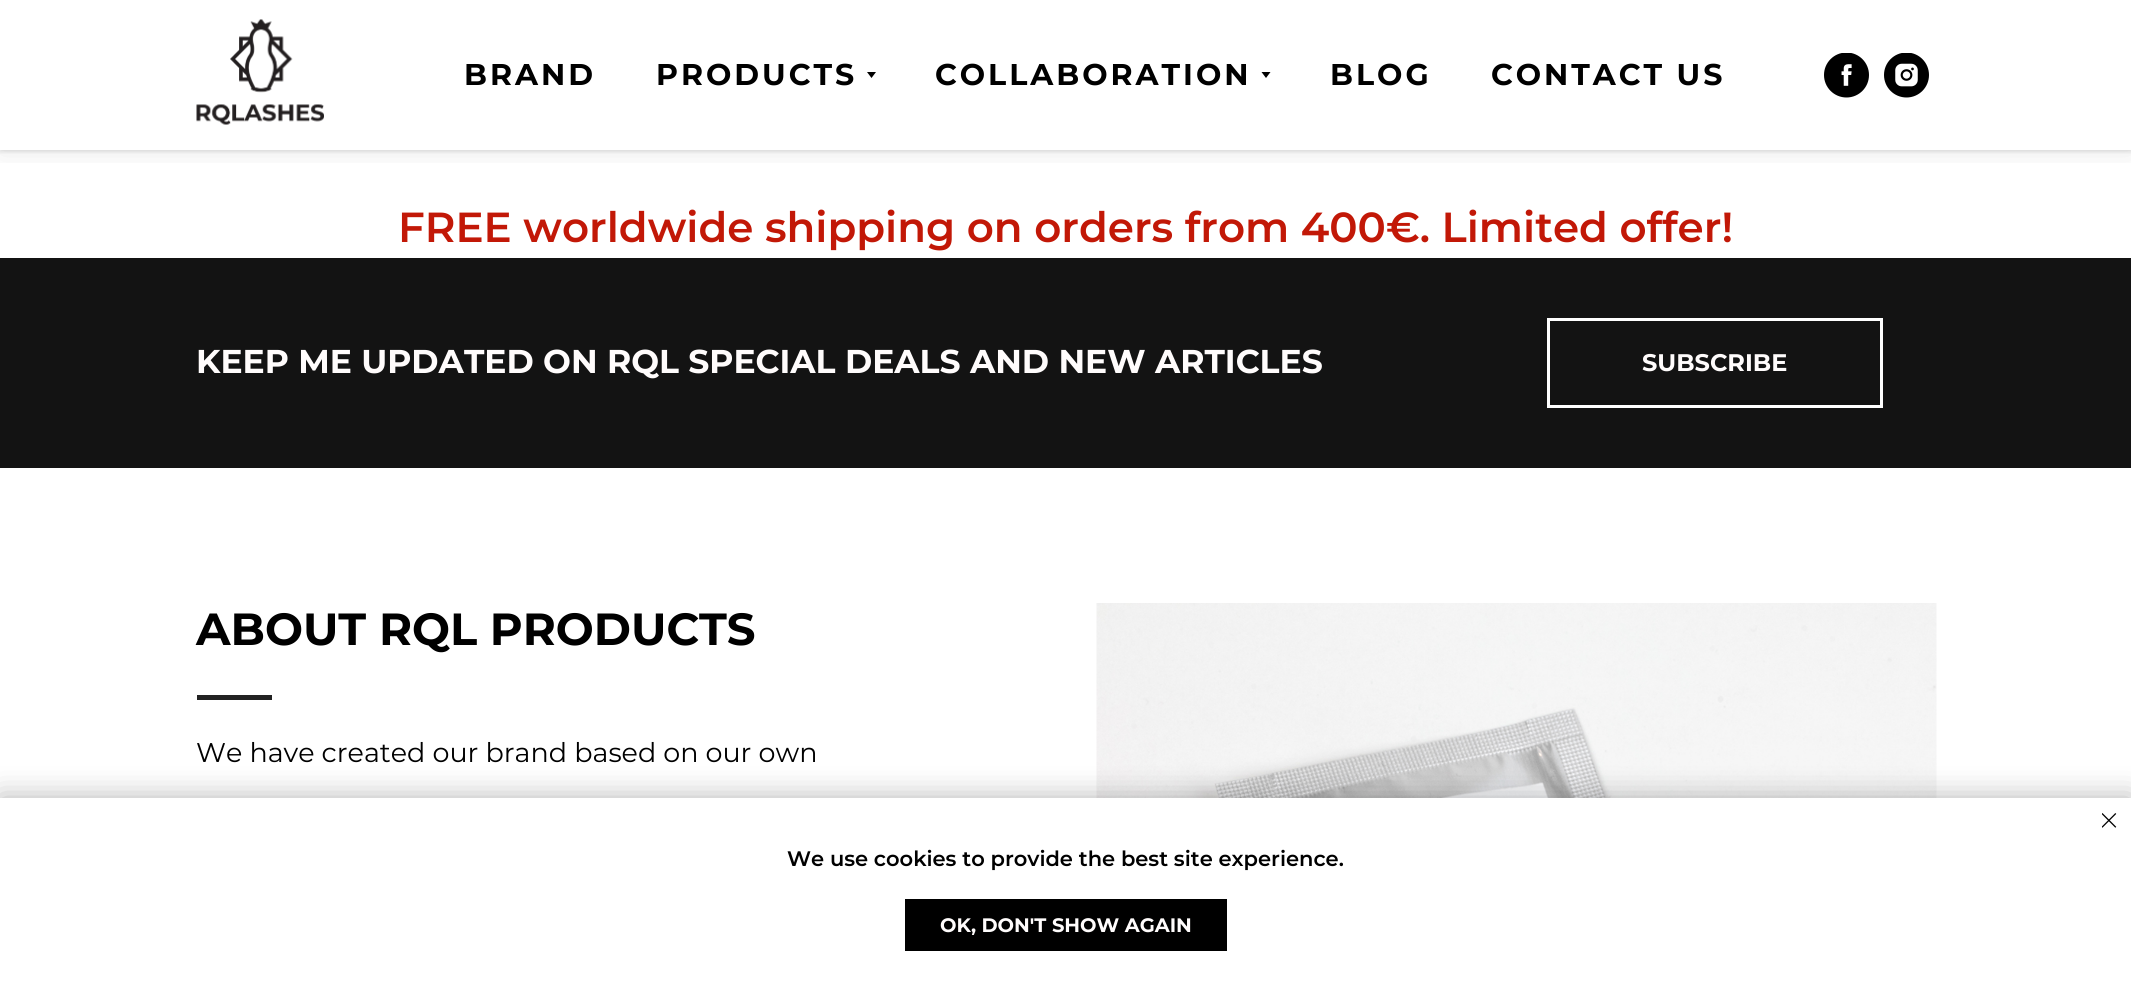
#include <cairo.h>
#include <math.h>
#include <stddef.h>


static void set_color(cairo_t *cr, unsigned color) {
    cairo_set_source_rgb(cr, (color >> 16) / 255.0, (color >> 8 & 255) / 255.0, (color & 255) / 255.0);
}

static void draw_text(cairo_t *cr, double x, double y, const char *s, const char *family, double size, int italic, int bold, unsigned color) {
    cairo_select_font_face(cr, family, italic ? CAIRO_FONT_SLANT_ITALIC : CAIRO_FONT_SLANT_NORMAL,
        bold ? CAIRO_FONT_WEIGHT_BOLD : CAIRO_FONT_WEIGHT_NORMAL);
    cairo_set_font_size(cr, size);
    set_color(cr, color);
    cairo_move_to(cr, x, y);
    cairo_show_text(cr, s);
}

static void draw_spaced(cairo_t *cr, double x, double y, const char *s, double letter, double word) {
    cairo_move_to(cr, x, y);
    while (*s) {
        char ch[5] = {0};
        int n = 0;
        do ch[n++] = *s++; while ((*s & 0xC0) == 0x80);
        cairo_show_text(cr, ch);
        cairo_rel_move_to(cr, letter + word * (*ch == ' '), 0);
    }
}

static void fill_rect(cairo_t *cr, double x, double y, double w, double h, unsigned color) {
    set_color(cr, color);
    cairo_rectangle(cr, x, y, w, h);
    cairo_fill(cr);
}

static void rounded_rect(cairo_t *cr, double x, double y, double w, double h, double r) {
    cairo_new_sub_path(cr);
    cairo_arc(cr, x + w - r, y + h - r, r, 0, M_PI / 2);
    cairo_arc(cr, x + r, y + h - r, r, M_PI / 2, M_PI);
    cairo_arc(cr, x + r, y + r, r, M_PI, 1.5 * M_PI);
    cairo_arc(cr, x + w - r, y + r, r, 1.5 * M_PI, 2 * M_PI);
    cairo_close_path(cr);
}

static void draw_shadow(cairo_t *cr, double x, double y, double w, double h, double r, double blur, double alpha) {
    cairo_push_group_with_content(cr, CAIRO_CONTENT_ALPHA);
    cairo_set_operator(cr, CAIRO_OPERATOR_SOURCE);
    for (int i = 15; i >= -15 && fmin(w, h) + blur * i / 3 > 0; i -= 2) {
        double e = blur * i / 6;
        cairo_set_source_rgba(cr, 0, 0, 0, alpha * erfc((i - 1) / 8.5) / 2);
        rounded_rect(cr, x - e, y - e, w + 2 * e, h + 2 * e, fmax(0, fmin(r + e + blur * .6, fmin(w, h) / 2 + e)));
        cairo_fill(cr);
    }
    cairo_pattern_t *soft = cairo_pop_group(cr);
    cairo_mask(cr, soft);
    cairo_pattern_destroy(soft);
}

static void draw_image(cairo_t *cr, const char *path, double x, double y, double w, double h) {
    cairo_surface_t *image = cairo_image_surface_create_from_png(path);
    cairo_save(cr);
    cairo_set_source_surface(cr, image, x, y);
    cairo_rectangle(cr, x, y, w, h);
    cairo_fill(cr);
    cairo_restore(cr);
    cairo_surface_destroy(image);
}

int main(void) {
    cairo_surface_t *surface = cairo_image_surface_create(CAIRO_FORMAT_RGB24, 2131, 1001);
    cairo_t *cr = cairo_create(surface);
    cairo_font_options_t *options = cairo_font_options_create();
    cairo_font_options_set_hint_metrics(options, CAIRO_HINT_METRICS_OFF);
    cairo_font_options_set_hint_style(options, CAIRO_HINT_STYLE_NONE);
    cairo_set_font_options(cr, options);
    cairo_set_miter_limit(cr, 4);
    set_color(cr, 0xFFFFFF);
    cairo_paint(cr);
    cairo_save(cr);
    cairo_rectangle(cr, 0, 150, 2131, 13);
    cairo_clip(cr);
    set_color(cr, 0x000000);
    draw_shadow(cr, 0, 0, 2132, 150, 0, 15, 0.1);
    cairo_restore(cr);
    cairo_save(cr);
    cairo_rectangle(cr, 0, 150, 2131, 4);
    cairo_clip(cr);
    set_color(cr, 0x000000);
    draw_shadow(cr, 0, 2, 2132, 150, 0, 2, 0.1);
    cairo_restore(cr);
    draw_image(cr, "assets/img1.png", 196, 19, 128, 106);
    cairo_select_font_face(cr, "Montserrat", CAIRO_FONT_SLANT_NORMAL, CAIRO_FONT_WEIGHT_BOLD);
    cairo_set_font_size(cr, 30);
    set_color(cr, 0x000000);
    draw_spaced(cr, 464, 85, "BRAND", 3, 0);
    draw_spaced(cr, 656, 85, "PRODUCTS", 3, 0);
    cairo_new_path(cr);
    cairo_move_to(cr, 867, 72);
    cairo_line_to(cr, 876, 72);
    cairo_line_to(cr, 871.5, 78);
    cairo_close_path(cr);
    cairo_fill(cr);
    draw_spaced(cr, 935, 85, "COLLABORATION", 3, 0);
    cairo_new_path(cr);
    cairo_move_to(cr, 1261.5, 72);
    cairo_line_to(cr, 1270.5, 72);
    cairo_line_to(cr, 1266, 78);
    cairo_close_path(cr);
    cairo_fill(cr);
    draw_spaced(cr, 1330, 85, "BLOG", 3, 0);
    draw_spaced(cr, 1491, 85, "CONTACT US", 3, 0);
    draw_image(cr, "assets/img2.png", 1824, 53, 45, 45);
    draw_image(cr, "assets/img3.png", 1884, 53, 45, 45);
    draw_text(cr, 398, 242, "FREE worldwide shipping on orders from 400€. Limited offer!", "Montserrat SemiBold", 42, 0, 0, 0xC21807);
    fill_rect(cr, 0, 258, 2131, 210, 0x131313);
    draw_text(cr, 196, 373, "KEEP ME UPDATED ON RQL SPECIAL DEALS AND NEW ARTICLES", "Montserrat", 33, 0, 1, 0xFFFCFC);
    cairo_rectangle(cr, 1548.5, 319.5, 333, 87);
    set_color(cr, 0xFFFFFF);
    cairo_set_line_width(cr, 3);
    cairo_stroke(cr);
    draw_text(cr, 1642, 371, "SUBSCRIBE", "Montserrat", 24, 0, 1, 0xFFFCFC);
    draw_text(cr, 196, 645, "ABOUT RQL PRODUCTS", "Montserrat", 45, 0, 1, 0x000000);
    fill_rect(cr, 197, 695, 75, 5, 0x222222);
    draw_text(cr, 196, 762, "We have created our brand based on our own", "Montserrat", 27, 0, 0, 0x000000);
    draw_image(cr, "assets/img4.png", 1096, 603, 841, 195);
    set_color(cr, 0x000000);
    draw_shadow(cr, 0, 798, 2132, 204, 0, 15, 0.3);
    fill_rect(cr, 0, 798, 2131, 203, 0xFFFFFF);
    draw_image(cr, "assets/img5.png", 2102, 813, 15, 15);
    draw_text(cr, 787, 866, "We use cookies to provide the best site experience.", "Montserrat SemiBold", 21, 0, 0, 0x000000);
    fill_rect(cr, 905, 899, 322, 52, 0x000000);
    draw_text(cr, 940, 932, "OK, DON'T SHOW AGAIN", "Montserrat", 19.5, 0, 1, 0xFFFCFC);
    cairo_surface_write_to_png(surface, "output.png");
    cairo_font_options_destroy(options);
    cairo_destroy(cr);
    cairo_surface_destroy(surface);
    return 0;
}
